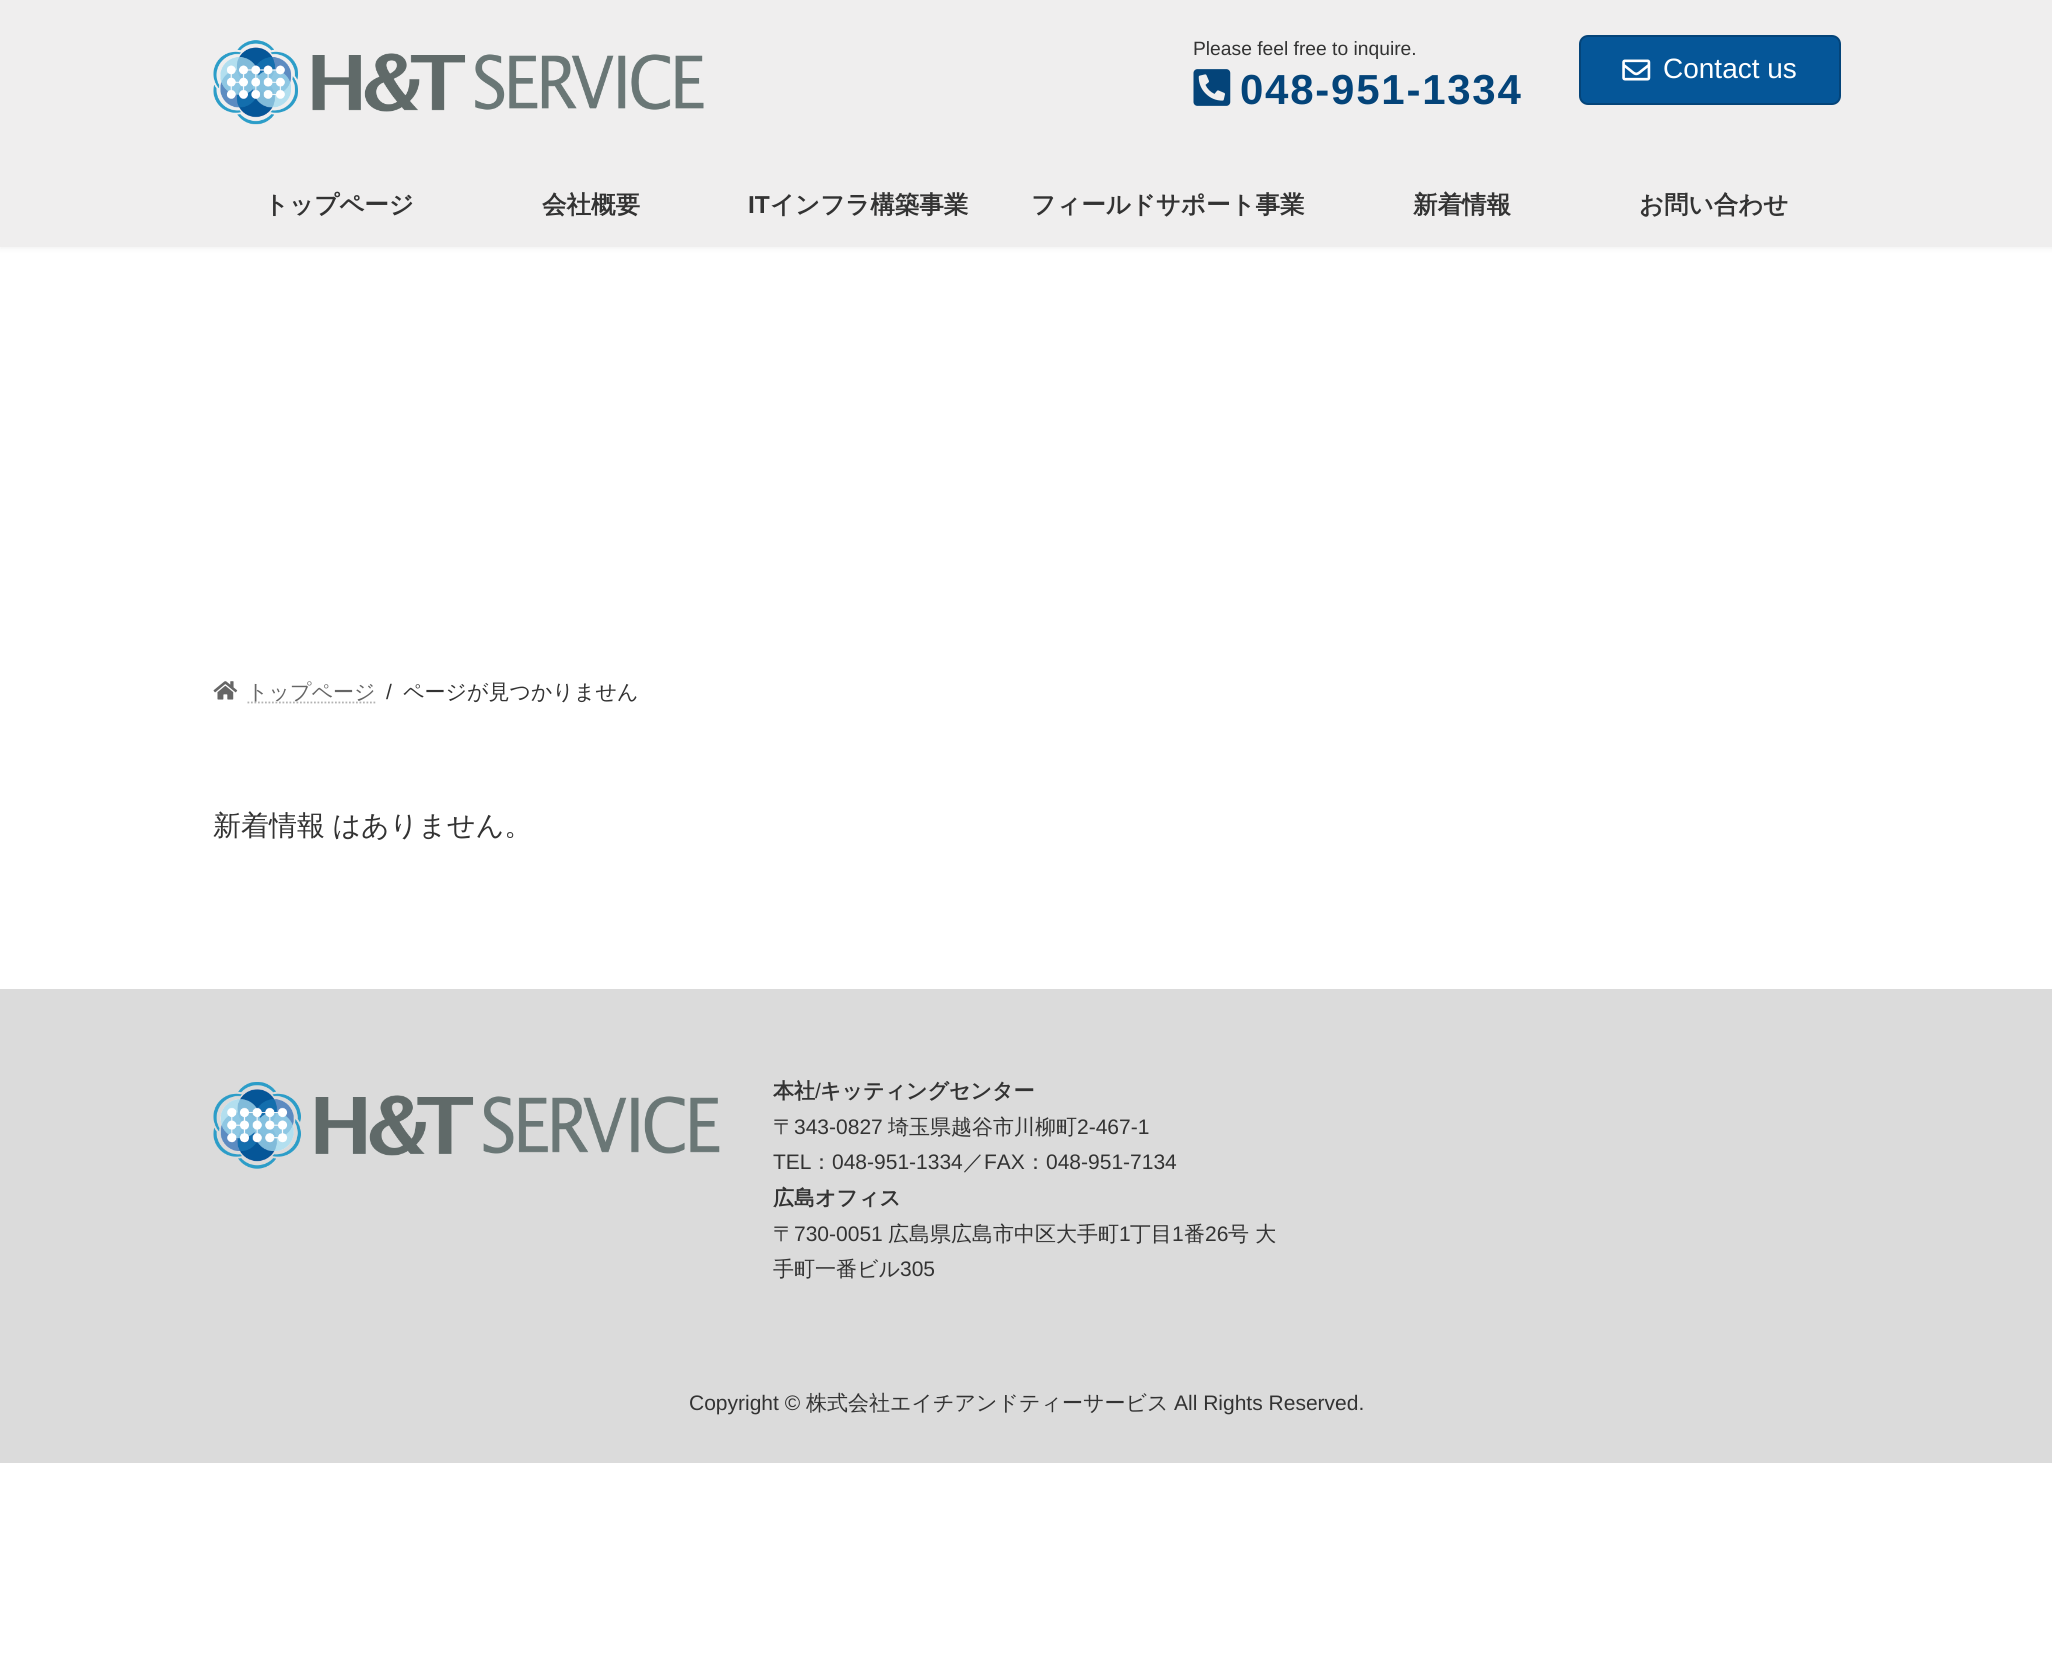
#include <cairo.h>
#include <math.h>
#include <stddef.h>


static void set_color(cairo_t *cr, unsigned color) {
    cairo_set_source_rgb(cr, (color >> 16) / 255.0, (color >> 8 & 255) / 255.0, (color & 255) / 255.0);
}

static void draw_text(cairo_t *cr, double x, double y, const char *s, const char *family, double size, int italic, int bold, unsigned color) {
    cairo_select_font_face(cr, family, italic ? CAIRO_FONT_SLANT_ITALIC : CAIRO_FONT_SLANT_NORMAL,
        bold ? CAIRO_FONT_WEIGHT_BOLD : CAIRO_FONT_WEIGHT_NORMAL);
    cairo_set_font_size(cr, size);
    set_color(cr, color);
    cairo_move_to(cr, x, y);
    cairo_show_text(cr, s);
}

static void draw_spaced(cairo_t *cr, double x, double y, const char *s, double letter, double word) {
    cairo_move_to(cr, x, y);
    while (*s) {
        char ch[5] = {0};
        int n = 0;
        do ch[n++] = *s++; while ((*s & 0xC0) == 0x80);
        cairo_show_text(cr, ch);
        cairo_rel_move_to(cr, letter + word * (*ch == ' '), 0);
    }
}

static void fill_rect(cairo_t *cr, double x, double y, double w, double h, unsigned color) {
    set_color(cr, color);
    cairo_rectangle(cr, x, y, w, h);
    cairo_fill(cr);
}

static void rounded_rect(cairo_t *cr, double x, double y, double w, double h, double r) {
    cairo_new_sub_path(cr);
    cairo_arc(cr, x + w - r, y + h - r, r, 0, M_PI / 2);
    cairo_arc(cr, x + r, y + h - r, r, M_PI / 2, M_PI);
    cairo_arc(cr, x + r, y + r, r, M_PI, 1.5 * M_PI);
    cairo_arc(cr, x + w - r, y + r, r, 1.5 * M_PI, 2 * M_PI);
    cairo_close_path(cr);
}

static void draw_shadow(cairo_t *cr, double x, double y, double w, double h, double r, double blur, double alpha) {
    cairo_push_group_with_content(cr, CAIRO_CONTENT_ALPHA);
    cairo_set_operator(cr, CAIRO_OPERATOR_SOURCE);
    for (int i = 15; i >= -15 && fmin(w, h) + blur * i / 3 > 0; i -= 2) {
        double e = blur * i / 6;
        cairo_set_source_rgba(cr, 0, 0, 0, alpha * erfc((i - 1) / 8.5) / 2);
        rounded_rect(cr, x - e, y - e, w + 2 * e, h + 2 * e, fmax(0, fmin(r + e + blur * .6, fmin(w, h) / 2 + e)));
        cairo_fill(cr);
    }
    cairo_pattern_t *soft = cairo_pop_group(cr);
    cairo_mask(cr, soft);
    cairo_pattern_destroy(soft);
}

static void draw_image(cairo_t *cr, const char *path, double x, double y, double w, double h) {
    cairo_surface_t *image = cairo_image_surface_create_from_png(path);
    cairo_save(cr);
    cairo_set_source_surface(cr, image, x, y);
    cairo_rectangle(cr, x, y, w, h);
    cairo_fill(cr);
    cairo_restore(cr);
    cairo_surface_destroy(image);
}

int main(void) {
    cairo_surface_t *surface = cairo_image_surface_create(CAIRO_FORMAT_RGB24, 2052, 1668);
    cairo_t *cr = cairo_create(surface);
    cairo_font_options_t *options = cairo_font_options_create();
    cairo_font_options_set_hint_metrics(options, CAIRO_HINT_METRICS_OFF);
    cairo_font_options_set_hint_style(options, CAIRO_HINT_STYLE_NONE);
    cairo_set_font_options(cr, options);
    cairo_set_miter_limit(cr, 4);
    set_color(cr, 0xFFFFFF);
    cairo_paint(cr);
    set_color(cr, 0x000000);
    draw_shadow(cr, 0, 2, 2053, 247, 0, 2.5, 0.05);
    fill_rect(cr, 0, 0, 2052, 247, 0xEFEEEE);
    draw_image(cr, "assets/img1.png", 213, 40, 491, 85);
    draw_text(cr, 1193, 55, "Please feel free to inquire.", "Liberation Sans", 19.25, 0, 0, 0x333333);
    draw_image(cr, "assets/img2.png", 1193, 69, 38, 37);
    cairo_select_font_face(cr, "Liberation Sans", CAIRO_FONT_SLANT_NORMAL, CAIRO_FONT_WEIGHT_BOLD);
    cairo_set_font_size(cr, 42);
    set_color(cr, 0x044479);
    draw_spaced(cr, 1240, 104, "048-951-1334", 1.75, 0);
    set_color(cr, 0x055698);
    rounded_rect(cr, 1580, 36, 260, 68, 8);
    cairo_fill_preserve(cr);
    set_color(cr, 0x044479);
    cairo_stroke(cr);
    draw_image(cr, "assets/img3.png", 1622, 59, 29, 22);
    draw_text(cr, 1663, 78, "Contact us", "Liberation Sans", 28, 0, 0, 0xFFFFFF);
    draw_text(cr, 264, 213, "トップページ", "WenQuanYi Zen Hei", 24.5, 0, 1, 0x333333);
    draw_text(cr, 542, 213, "会社概要", "WenQuanYi Zen Hei", 24.5, 0, 1, 0x333333);
    draw_text(cr, 748, 213, "IT", "Liberation Sans", 24.5, 0, 1, 0x333333);
    draw_text(cr, 770, 213, "インフラ構築事業", "WenQuanYi Zen Hei", 24.5, 0, 1, 0x333333);
    draw_text(cr, 1031, 213, "フィールドサポート事業", "WenQuanYi Zen Hei", 24.5, 0, 1, 0x333333);
    draw_text(cr, 1413, 213, "新着情報", "WenQuanYi Zen Hei", 24.5, 0, 1, 0x333333);
    draw_text(cr, 1639, 213, "お問い合わせ", "WenQuanYi Zen Hei", 24.5, 0, 1, 0x333333);
    draw_image(cr, "assets/img4.png", 213, 681, 25, 19);
    cairo_new_path(cr);
    cairo_move_to(cr, 247.5, 702.5);
    cairo_line_to(cr, 375.5, 702.5);
    set_color(cr, 0xB3B3B3);
    cairo_set_line_width(cr, 1.8);
    cairo_set_dash(cr, (double[]){1.75, 1.75}, 2, 0);
    cairo_stroke(cr);
    draw_text(cr, 247, 699, "トップページ", "WenQuanYi Zen Hei Medium", 21, 0, 0, 0x666666);
    draw_text(cr, 386, 699, "/", "Liberation Sans", 21, 0, 0, 0x333333);
    draw_text(cr, 403, 699, "ページが見つかりません", "WenQuanYi Zen Hei Medium", 21, 0, 0, 0x333333);
    cairo_set_font_size(cr, 28);
    draw_spaced(cr, 213, 835, "新着情報 はありません。", 0, -1);
    fill_rect(cr, 0, 989, 2052, 474, 0xDBDBDB);
    draw_image(cr, "assets/img5.png", 213, 1082, 507, 87);
    draw_text(cr, 773, 1098, "本社", "WenQuanYi Zen Hei", 21, 0, 1, 0x333333);
    draw_text(cr, 815, 1098, "/", "Liberation Sans", 21, 0, 0, 0x333333);
    draw_text(cr, 820, 1098, "キッティングセンター", "WenQuanYi Zen Hei", 21, 0, 1, 0x333333);
    draw_text(cr, 773, 1134, "〒", "WenQuanYi Zen Hei Medium", 21, 0, 0, 0x333333);
    draw_text(cr, 794, 1134, "343-0827", "Liberation Sans", 21, 0, 0, 0x333333);
    draw_text(cr, 888, 1134, "埼玉県越谷市川柳町", "WenQuanYi Zen Hei Medium", 21, 0, 0, 0x333333);
    draw_text(cr, 1077, 1134, "2-467-1", "Liberation Sans", 21, 0, 0, 0x333333);
    draw_text(cr, 773, 1169, "TEL", "Liberation Sans", 21, 0, 0, 0x333333);
    draw_text(cr, 811, 1169, "：", "WenQuanYi Zen Hei Medium", 21, 0, 0, 0x333333);
    draw_text(cr, 832, 1169, "048-951-1334", "Liberation Sans", 21, 0, 0, 0x333333);
    draw_text(cr, 963, 1169, "／", "WenQuanYi Zen Hei Medium", 21, 0, 0, 0x333333);
    draw_text(cr, 984, 1169, "FAX", "Liberation Sans", 21, 0, 0, 0x333333);
    draw_text(cr, 1025, 1169, "：", "WenQuanYi Zen Hei Medium", 21, 0, 0, 0x333333);
    draw_text(cr, 1046, 1169, "048-951-7134", "Liberation Sans", 21, 0, 0, 0x333333);
    draw_text(cr, 773, 1205, "広島オフィス", "WenQuanYi Zen Hei", 21, 0, 1, 0x333333);
    draw_text(cr, 773, 1241, "〒", "WenQuanYi Zen Hei Medium", 21, 0, 0, 0x333333);
    draw_text(cr, 794, 1241, "730-0051", "Liberation Sans", 21, 0, 0, 0x333333);
    draw_text(cr, 888, 1241, "広島県広島市中区大手町", "WenQuanYi Zen Hei Medium", 21, 0, 0, 0x333333);
    draw_text(cr, 1119, 1241, "1", "Liberation Sans", 21, 0, 0, 0x333333);
    draw_text(cr, 1130, 1241, "丁目", "WenQuanYi Zen Hei Medium", 21, 0, 0, 0x333333);
    draw_text(cr, 1172, 1241, "1", "Liberation Sans", 21, 0, 0, 0x333333);
    draw_text(cr, 1184, 1241, "番", "WenQuanYi Zen Hei Medium", 21, 0, 0, 0x333333);
    draw_text(cr, 1205, 1241, "26", "Liberation Sans", 21, 0, 0, 0x333333);
    draw_text(cr, 1228, 1241, "号 大", "WenQuanYi Zen Hei Medium", 21, 0, 0, 0x333333);
    draw_text(cr, 773, 1276, "手町一番ビル", "WenQuanYi Zen Hei Medium", 21, 0, 0, 0x333333);
    draw_text(cr, 900, 1276, "305", "Liberation Sans", 21, 0, 0, 0x333333);
    draw_text(cr, 689, 1410, "Copyright ©", "Liberation Sans", 21, 0, 0, 0x333333);
    draw_text(cr, 806, 1410, "株式会社エイチアンドティーサービス", "WenQuanYi Zen Hei Medium", 21, 0, 0, 0x333333);
    draw_text(cr, 1174, 1410, "All Rights Reserved.", "Liberation Sans", 21, 0, 0, 0x333333);
    cairo_surface_write_to_png(surface, "output.png");
    cairo_font_options_destroy(options);
    cairo_destroy(cr);
    cairo_surface_destroy(surface);
    return 0;
}
